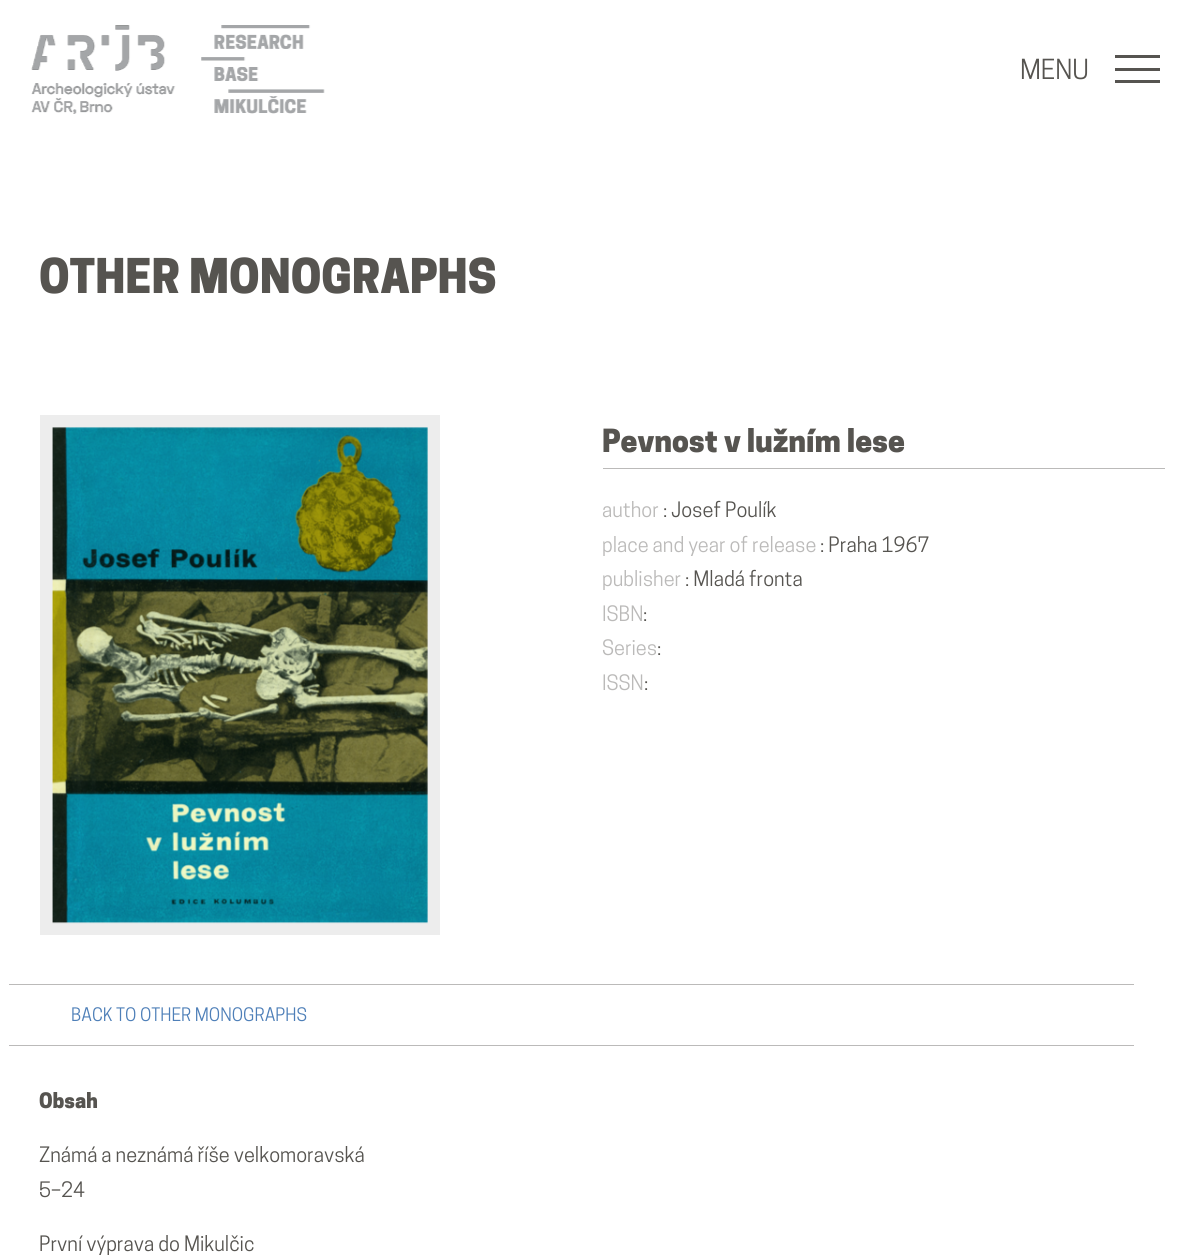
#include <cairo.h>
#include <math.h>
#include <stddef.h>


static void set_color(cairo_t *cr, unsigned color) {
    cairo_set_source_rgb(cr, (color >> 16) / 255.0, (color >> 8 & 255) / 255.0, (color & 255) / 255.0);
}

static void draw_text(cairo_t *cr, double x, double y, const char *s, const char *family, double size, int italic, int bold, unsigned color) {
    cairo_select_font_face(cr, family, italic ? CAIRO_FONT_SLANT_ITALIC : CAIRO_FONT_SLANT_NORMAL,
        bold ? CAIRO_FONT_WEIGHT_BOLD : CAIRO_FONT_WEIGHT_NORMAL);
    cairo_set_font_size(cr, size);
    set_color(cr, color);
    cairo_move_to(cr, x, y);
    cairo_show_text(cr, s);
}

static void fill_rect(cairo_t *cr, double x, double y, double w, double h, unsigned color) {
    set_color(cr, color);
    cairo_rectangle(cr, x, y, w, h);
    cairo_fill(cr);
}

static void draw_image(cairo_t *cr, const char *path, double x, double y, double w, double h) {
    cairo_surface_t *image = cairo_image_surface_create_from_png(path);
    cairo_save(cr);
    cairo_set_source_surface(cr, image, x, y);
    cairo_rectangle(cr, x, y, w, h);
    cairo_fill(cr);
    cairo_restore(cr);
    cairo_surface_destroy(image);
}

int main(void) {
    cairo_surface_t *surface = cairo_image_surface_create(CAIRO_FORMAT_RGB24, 1203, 1255);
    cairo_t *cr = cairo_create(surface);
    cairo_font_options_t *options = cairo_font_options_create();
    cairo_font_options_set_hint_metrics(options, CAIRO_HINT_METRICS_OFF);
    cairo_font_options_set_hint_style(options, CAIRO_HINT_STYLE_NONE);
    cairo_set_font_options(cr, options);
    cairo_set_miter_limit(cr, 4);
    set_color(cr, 0xFFFFFF);
    cairo_paint(cr);
    draw_image(cr, "assets/img1.png", 31, 25, 145, 89);
    draw_image(cr, "assets/img2.png", 201, 25, 124, 89);
    draw_text(cr, 1020, 79, "MENU", "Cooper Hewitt", 26, 0, 0, 0x565450);
    fill_rect(cr, 1115, 55, 45, 3, 0x565450);
    fill_rect(cr, 1115, 68, 45, 3, 0x565450);
    fill_rect(cr, 1115, 80, 45, 3, 0x565450);
    draw_text(cr, 39, 293, "OTHER MONOGRAPHS", "Cooper Hewitt Black", 45, 0, 0, 0x565450);
    cairo_rectangle(cr, 46.5, 421.5, 387, 507);
    set_color(cr, 0xEDEDED);
    cairo_set_line_width(cr, 13);
    cairo_stroke(cr);
    draw_image(cr, "assets/img3.png", 52, 427, 376, 497);
    draw_text(cr, 602, 452, "Pevnost v lužním lese", "Cooper Hewitt Black", 30, 0, 0, 0x565450);
    fill_rect(cr, 603, 468, 562, 1, 0xBBBAB9);
    draw_text(cr, 602, 517, "author", "Cooper Hewitt", 20, 0, 0, 0xBBBAB9);
    draw_text(cr, 663, 517, ": Josef Poulík", "Cooper Hewitt", 20, 0, 0, 0x565450);
    draw_text(cr, 602, 552, "place and year of release", "Cooper Hewitt", 20, 0, 0, 0xBBBAB9);
    draw_text(cr, 820, 552, ": Praha 1967", "Cooper Hewitt", 20, 0, 0, 0x565450);
    draw_text(cr, 602, 586, "publisher", "Cooper Hewitt", 20, 0, 0, 0xBBBAB9);
    draw_text(cr, 685, 586, ": Mladá fronta", "Cooper Hewitt", 20, 0, 0, 0x565450);
    draw_text(cr, 602, 621, "ISBN", "Cooper Hewitt", 20, 0, 0, 0xBBBAB9);
    draw_text(cr, 643, 621, ":", "Cooper Hewitt", 20, 0, 0, 0x565450);
    draw_text(cr, 602, 655, "Series", "Cooper Hewitt", 20, 0, 0, 0xBBBAB9);
    draw_text(cr, 657, 655, ":", "Cooper Hewitt", 20, 0, 0, 0x565450);
    draw_text(cr, 602, 690, "ISSN", "Cooper Hewitt", 20, 0, 0, 0xBBBAB9);
    draw_text(cr, 644, 690, ":", "Cooper Hewitt", 20, 0, 0, 0x565450);
    fill_rect(cr, 9, 984, 1125, 1, 0xBBBAB9);
    fill_rect(cr, 9, 1045, 1125, 1, 0xBBBAB9);
    draw_text(cr, 71, 1021, "BACK TO OTHER MONOGRAPHS", "Cooper Hewitt", 17.5, 0, 0, 0x4E7FB8);
    draw_text(cr, 39, 1108, "Obsah", "Cooper Hewitt Black", 20, 0, 0, 0x565450);
    draw_text(cr, 39, 1162, "Známá a neznámá říše velkomoravská", "Cooper Hewitt", 20, 0, 0, 0x565450);
    draw_text(cr, 39, 1197, "5–24", "Cooper Hewitt", 20, 0, 0, 0x565450);
    draw_text(cr, 39, 1251, "První výprava do Mikulčic", "Cooper Hewitt", 20, 0, 0, 0x565450);
    cairo_surface_write_to_png(surface, "output.png");
    cairo_font_options_destroy(options);
    cairo_destroy(cr);
    cairo_surface_destroy(surface);
    return 0;
}
